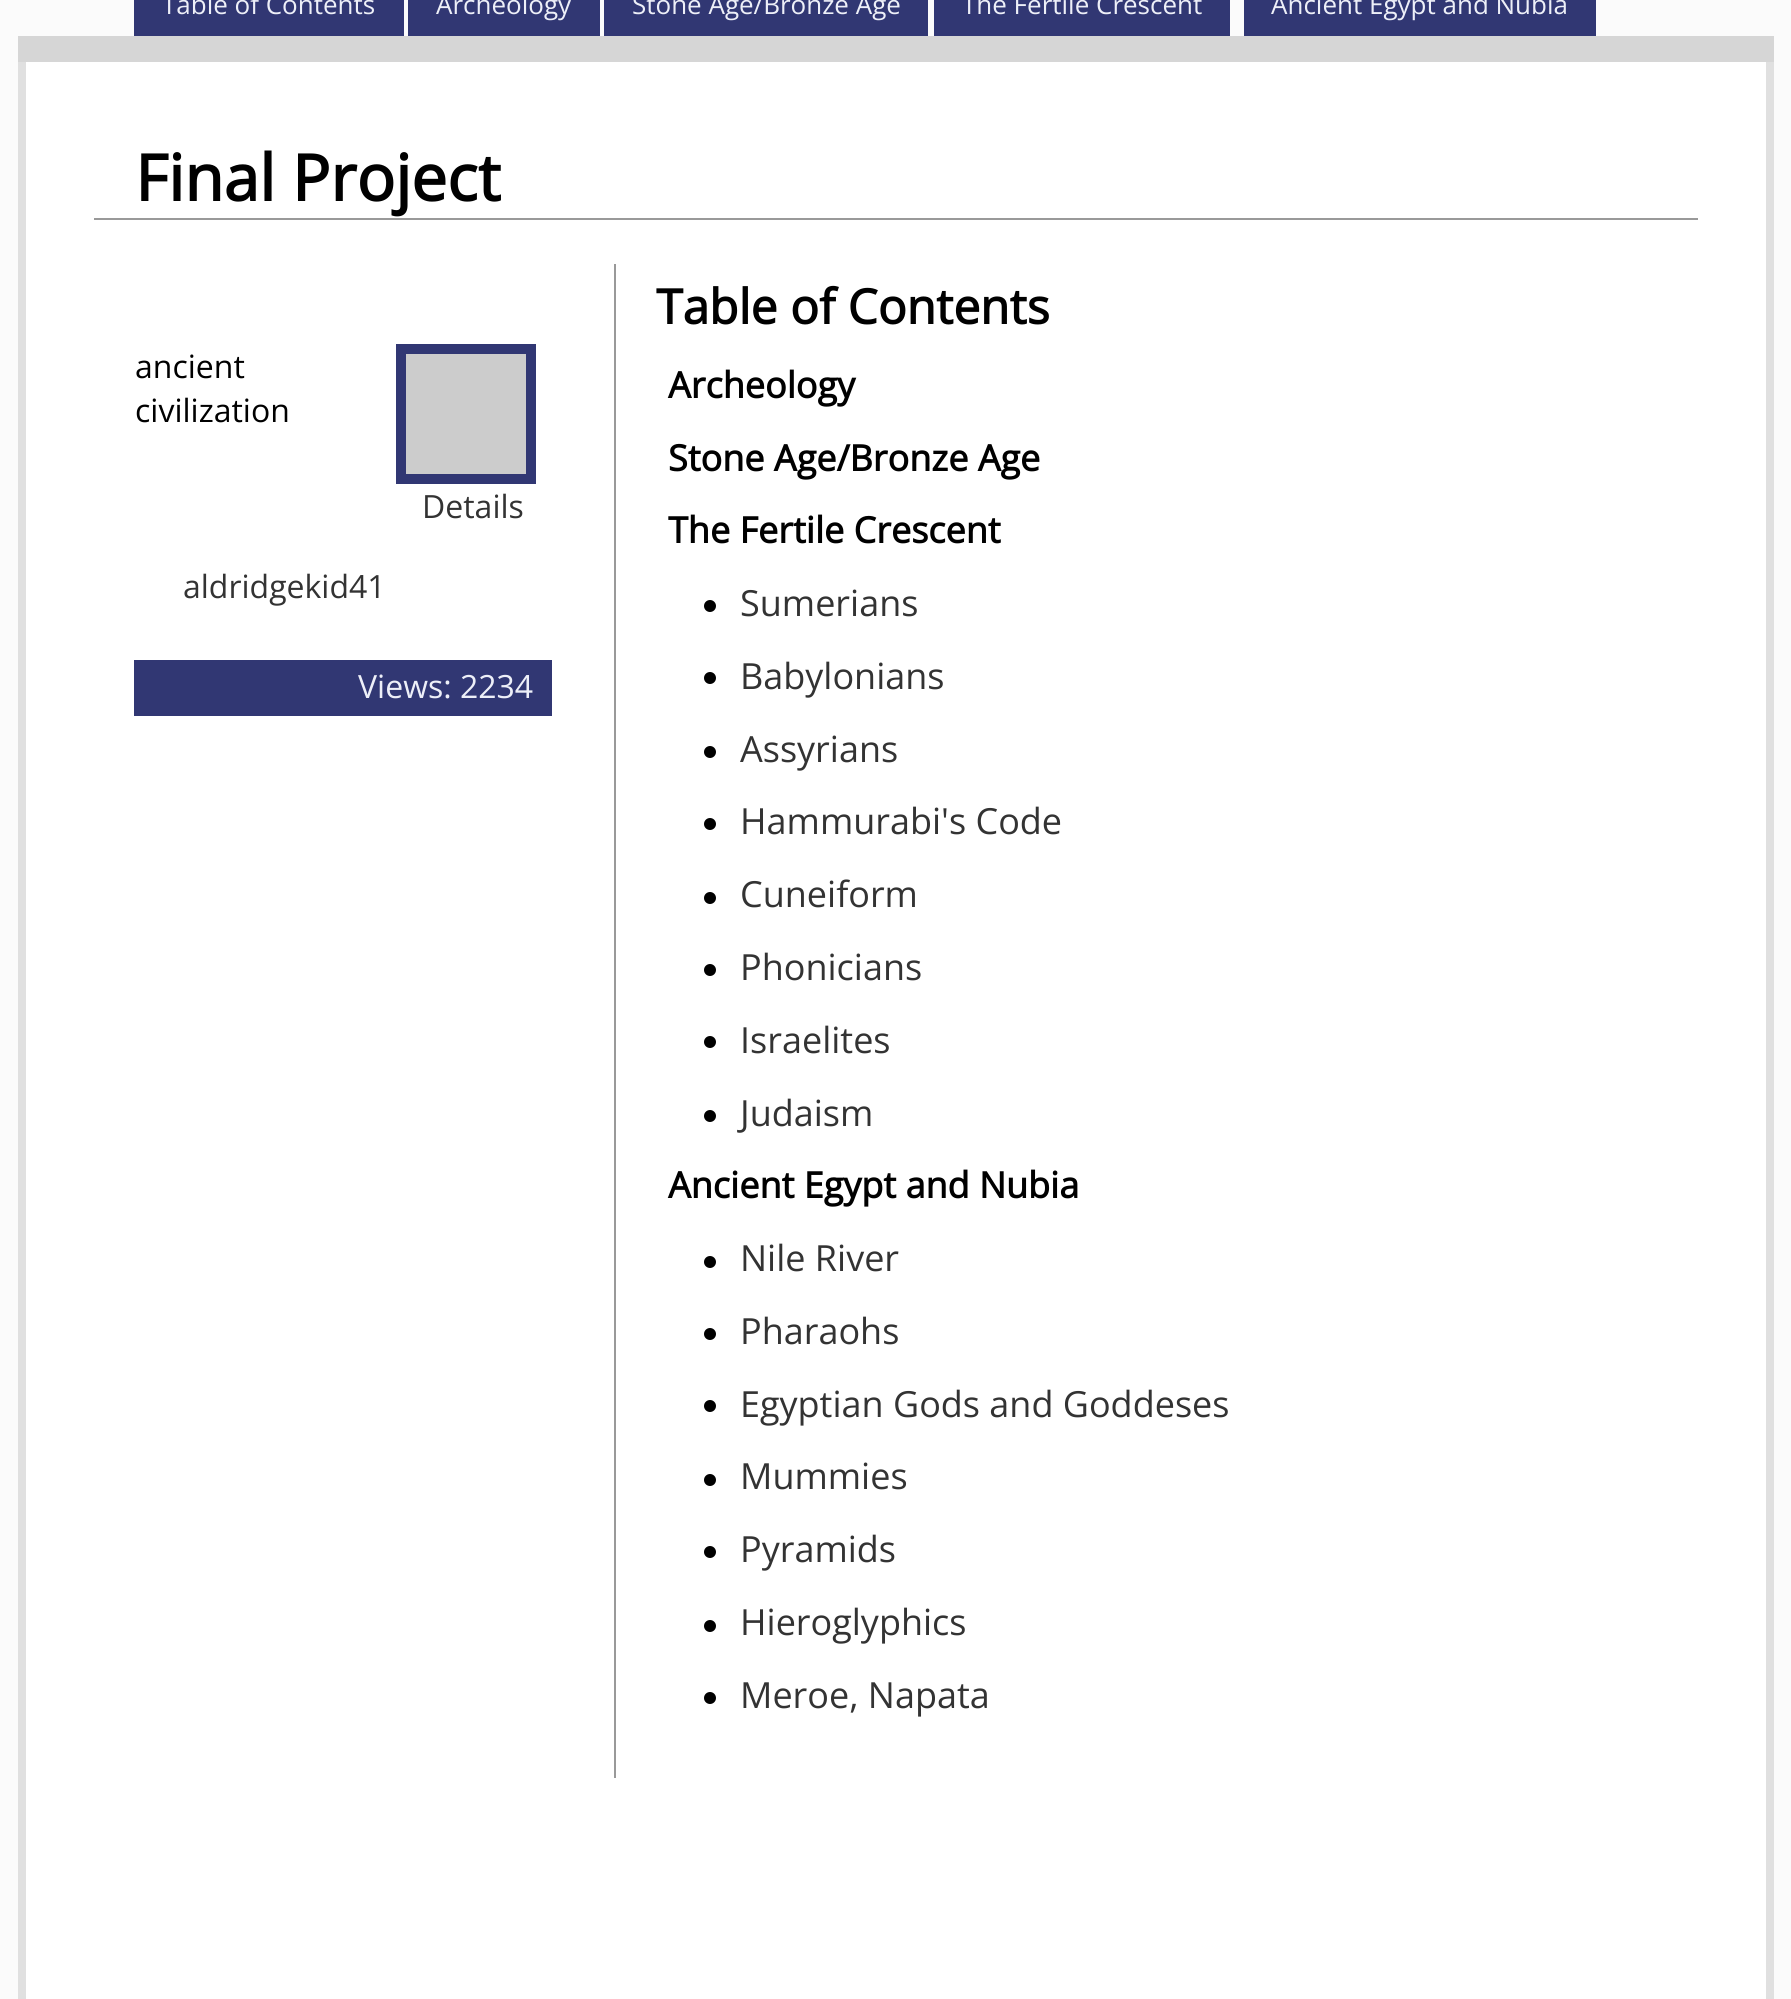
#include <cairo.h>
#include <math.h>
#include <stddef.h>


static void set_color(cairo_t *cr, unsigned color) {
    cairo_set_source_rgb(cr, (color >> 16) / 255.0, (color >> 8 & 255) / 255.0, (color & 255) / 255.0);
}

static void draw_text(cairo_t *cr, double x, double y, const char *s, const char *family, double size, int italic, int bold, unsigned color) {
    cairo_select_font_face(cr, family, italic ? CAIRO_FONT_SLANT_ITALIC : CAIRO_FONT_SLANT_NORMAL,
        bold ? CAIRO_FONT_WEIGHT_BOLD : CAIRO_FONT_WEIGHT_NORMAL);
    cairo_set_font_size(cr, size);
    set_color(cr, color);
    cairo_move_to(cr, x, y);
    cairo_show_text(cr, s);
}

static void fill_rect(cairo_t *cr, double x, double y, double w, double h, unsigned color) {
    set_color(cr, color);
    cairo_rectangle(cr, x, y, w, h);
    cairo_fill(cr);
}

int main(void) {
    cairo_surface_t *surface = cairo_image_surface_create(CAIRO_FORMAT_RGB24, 1791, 1999);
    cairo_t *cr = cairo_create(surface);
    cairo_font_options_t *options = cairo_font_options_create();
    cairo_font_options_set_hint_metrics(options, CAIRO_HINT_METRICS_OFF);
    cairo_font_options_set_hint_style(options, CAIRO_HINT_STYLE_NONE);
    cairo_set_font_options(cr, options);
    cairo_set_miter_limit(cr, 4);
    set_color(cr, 0xFBFBFB);
    cairo_paint(cr);
    fill_rect(cr, 18, 36, 1756, 26, 0xD6D6D6);
    fill_rect(cr, 134, 0, 270, 36, 0x313773);
    draw_text(cr, 162, 14, "Table of Contents", "Open Sans", 26, 0, 0, 0xEDEFF8);
    fill_rect(cr, 408, 0, 192, 36, 0x313773);
    draw_text(cr, 436, 14, "Archeology", "Open Sans", 26, 0, 0, 0xEDEFF8);
    fill_rect(cr, 604, 0, 324, 36, 0x313773);
    draw_text(cr, 632, 14, "Stone Age/Bronze Age", "Open Sans", 26, 0, 0, 0xEDEFF8);
    fill_rect(cr, 934, 0, 296, 36, 0x313773);
    draw_text(cr, 962, 14, "The Fertile Crescent", "Open Sans", 26, 0, 0, 0xEDEFF8);
    fill_rect(cr, 1244, 0, 352, 36, 0x313773);
    draw_text(cr, 1271, 14, "Ancient Egypt and Nubia", "Open Sans", 26, 0, 0, 0xEDEFF8);
    fill_rect(cr, 26, 62, 1740, 1937, 0xFFFFFF);
    fill_rect(cr, 1766, 62, 8, 1937, 0xE0E0E0);
    fill_rect(cr, 18, 62, 8, 1937, 0xE0E0E0);
    fill_rect(cr, 94, 218, 1604, 2, 0x999999);
    draw_text(cr, 135, 201, "Final Project", "Open Sans", 64, 0, 1, 0x000000);
    fill_rect(cr, 614, 264, 2, 1514, 0x999999);
    draw_text(cr, 656, 324, "Table of Contents", "Open Sans", 48, 0, 1, 0x000000);
    draw_text(cr, 135, 378, "ancient", "Open Sans", 32, 0, 0, 0x000000);
    draw_text(cr, 135, 422, "civilization", "Open Sans", 32, 0, 0, 0x000000);
    fill_rect(cr, 396, 344, 140, 140, 0x313773);
    fill_rect(cr, 406, 354, 120, 120, 0xCCCCCC);
    draw_text(cr, 422, 518, "Details", "Open Sans", 32, 0, 0, 0x333333);
    draw_text(cr, 183, 598, "aldridgekid41", "Open Sans", 32, 0, 0, 0x333333);
    fill_rect(cr, 134, 660, 418, 56, 0x313773);
    draw_text(cr, 358, 698, "Views: 2234", "Open Sans", 32, 0, 0, 0xEDEFF8);
    draw_text(cr, 668, 398, "Archeology", "Open Sans", 36, 0, 1, 0x000000);
    draw_text(cr, 668, 471, "Stone Age/Bronze Age", "Open Sans", 36, 0, 1, 0x000000);
    draw_text(cr, 668, 543, "The Fertile Crescent", "Open Sans", 36, 0, 1, 0x000000);
    cairo_new_path(cr);
    cairo_arc(cr, 710, 606, 6, 0, 2 * M_PI);
    cairo_fill(cr);
    draw_text(cr, 740, 616, "Sumerians", "Open Sans", 36, 0, 0, 0x333333);
    set_color(cr, 0x000000);
    cairo_new_path(cr);
    cairo_arc(cr, 710, 678, 6, 0, 2 * M_PI);
    cairo_fill(cr);
    draw_text(cr, 740, 689, "Babylonians", "Open Sans", 36, 0, 0, 0x333333);
    set_color(cr, 0x000000);
    cairo_new_path(cr);
    cairo_arc(cr, 710, 752, 6, 0, 2 * M_PI);
    cairo_fill(cr);
    draw_text(cr, 740, 762, "Assyrians", "Open Sans", 36, 0, 0, 0x333333);
    set_color(cr, 0x000000);
    cairo_new_path(cr);
    cairo_arc(cr, 710, 824, 6, 0, 2 * M_PI);
    cairo_fill(cr);
    draw_text(cr, 740, 834, "Hammurabi's Code", "Open Sans", 36, 0, 0, 0x333333);
    set_color(cr, 0x000000);
    cairo_new_path(cr);
    cairo_arc(cr, 710, 898, 6, 0, 2 * M_PI);
    cairo_fill(cr);
    draw_text(cr, 740, 907, "Cuneiform", "Open Sans", 36, 0, 0, 0x333333);
    set_color(cr, 0x000000);
    cairo_new_path(cr);
    cairo_arc(cr, 710, 970, 6, 0, 2 * M_PI);
    cairo_fill(cr);
    draw_text(cr, 740, 980, "Phonicians", "Open Sans", 36, 0, 0, 0x333333);
    set_color(cr, 0x000000);
    cairo_new_path(cr);
    cairo_arc(cr, 710, 1042, 6, 0, 2 * M_PI);
    cairo_fill(cr);
    draw_text(cr, 740, 1053, "Israelites", "Open Sans", 36, 0, 0, 0x333333);
    set_color(cr, 0x000000);
    cairo_new_path(cr);
    cairo_arc(cr, 710, 1116, 6, 0, 2 * M_PI);
    cairo_fill(cr);
    draw_text(cr, 740, 1126, "Judaism", "Open Sans", 36, 0, 0, 0x333333);
    draw_text(cr, 668, 1198, "Ancient Egypt and Nubia", "Open Sans", 36, 0, 1, 0x000000);
    cairo_new_path(cr);
    cairo_arc(cr, 710, 1262, 6, 0, 2 * M_PI);
    cairo_fill(cr);
    draw_text(cr, 740, 1271, "Nile River", "Open Sans", 36, 0, 0, 0x333333);
    set_color(cr, 0x000000);
    cairo_new_path(cr);
    cairo_arc(cr, 710, 1334, 6, 0, 2 * M_PI);
    cairo_fill(cr);
    draw_text(cr, 740, 1344, "Pharaohs", "Open Sans", 36, 0, 0, 0x333333);
    set_color(cr, 0x000000);
    cairo_new_path(cr);
    cairo_arc(cr, 710, 1406, 6, 0, 2 * M_PI);
    cairo_fill(cr);
    draw_text(cr, 740, 1417, "Egyptian Gods and Goddeses", "Open Sans", 36, 0, 0, 0x333333);
    set_color(cr, 0x000000);
    cairo_new_path(cr);
    cairo_arc(cr, 710, 1480, 6, 0, 2 * M_PI);
    cairo_fill(cr);
    draw_text(cr, 740, 1489, "Mummies", "Open Sans", 36, 0, 0, 0x333333);
    set_color(cr, 0x000000);
    cairo_new_path(cr);
    cairo_arc(cr, 710, 1552, 6, 0, 2 * M_PI);
    cairo_fill(cr);
    draw_text(cr, 740, 1562, "Pyramids", "Open Sans", 36, 0, 0, 0x333333);
    set_color(cr, 0x000000);
    cairo_new_path(cr);
    cairo_arc(cr, 710, 1626, 6, 0, 2 * M_PI);
    cairo_fill(cr);
    draw_text(cr, 740, 1635, "Hieroglyphics", "Open Sans", 36, 0, 0, 0x333333);
    set_color(cr, 0x000000);
    cairo_new_path(cr);
    cairo_arc(cr, 710, 1698, 6, 0, 2 * M_PI);
    cairo_fill(cr);
    draw_text(cr, 740, 1708, "Meroe, Napata", "Open Sans", 36, 0, 0, 0x333333);
    cairo_surface_write_to_png(surface, "output.png");
    cairo_font_options_destroy(options);
    cairo_destroy(cr);
    cairo_surface_destroy(surface);
    return 0;
}
